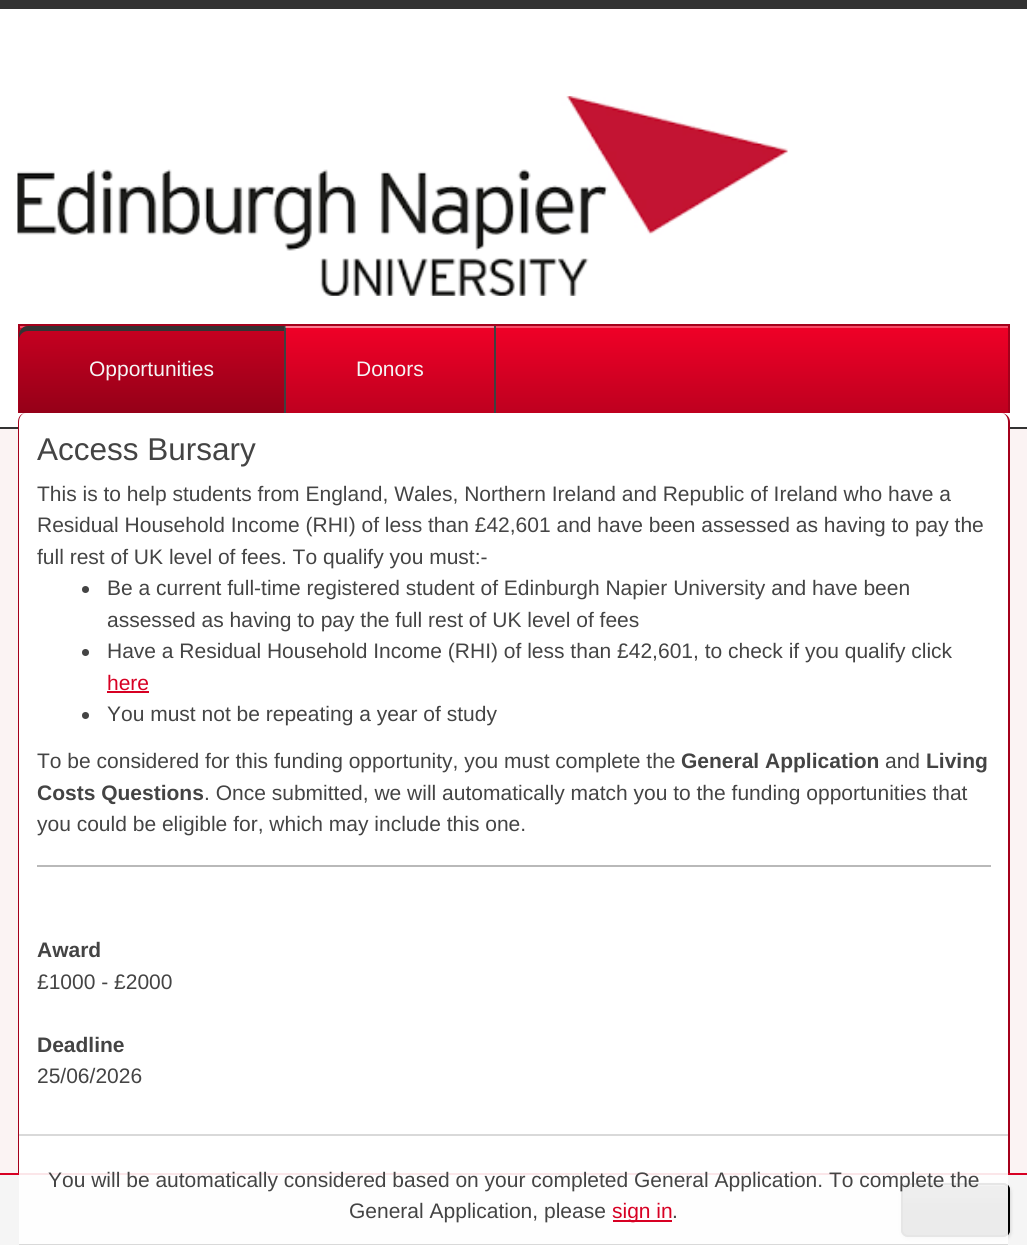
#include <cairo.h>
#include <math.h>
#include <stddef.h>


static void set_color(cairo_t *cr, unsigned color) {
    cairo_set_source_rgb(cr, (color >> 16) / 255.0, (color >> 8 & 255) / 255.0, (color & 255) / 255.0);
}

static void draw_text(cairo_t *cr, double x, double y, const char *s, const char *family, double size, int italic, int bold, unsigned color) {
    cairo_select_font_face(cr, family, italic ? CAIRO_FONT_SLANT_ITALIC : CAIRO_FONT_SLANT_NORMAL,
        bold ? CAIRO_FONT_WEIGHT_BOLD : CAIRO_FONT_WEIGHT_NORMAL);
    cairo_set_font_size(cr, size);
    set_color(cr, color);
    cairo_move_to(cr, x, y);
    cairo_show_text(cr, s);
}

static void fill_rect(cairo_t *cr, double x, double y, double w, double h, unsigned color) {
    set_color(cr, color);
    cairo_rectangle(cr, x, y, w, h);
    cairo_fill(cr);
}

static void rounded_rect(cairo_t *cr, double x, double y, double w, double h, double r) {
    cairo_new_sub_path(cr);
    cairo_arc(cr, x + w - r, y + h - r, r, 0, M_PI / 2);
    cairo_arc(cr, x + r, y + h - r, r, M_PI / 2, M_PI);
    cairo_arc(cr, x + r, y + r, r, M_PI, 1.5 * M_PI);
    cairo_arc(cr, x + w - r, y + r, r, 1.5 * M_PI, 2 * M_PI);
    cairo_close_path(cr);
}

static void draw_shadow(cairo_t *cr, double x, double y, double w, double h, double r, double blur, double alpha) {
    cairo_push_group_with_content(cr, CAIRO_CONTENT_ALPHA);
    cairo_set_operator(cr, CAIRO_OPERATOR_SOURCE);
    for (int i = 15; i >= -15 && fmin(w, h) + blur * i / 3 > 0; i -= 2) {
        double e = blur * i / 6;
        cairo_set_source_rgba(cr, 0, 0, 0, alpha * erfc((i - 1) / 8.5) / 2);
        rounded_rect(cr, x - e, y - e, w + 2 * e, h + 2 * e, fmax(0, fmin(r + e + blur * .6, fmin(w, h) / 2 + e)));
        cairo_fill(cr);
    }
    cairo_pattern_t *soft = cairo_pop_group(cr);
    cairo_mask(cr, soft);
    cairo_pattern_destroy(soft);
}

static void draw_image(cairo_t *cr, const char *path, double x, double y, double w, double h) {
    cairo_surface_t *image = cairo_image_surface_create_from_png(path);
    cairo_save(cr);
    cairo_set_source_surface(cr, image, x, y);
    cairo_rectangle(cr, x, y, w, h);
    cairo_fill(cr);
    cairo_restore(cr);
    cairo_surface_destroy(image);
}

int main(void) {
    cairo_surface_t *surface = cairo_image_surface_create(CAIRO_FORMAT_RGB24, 1027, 1245);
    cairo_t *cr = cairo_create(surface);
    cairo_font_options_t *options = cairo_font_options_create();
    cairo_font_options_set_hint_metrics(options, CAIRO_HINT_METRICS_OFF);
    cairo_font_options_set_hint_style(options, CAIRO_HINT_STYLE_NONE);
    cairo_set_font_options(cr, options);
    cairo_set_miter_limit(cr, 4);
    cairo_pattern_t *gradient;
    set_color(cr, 0xFBF3F3);
    cairo_paint(cr);
    fill_rect(cr, 0, 9, 1027, 418, 0xFFFFFF);
    fill_rect(cr, 0, 0, 1027, 9, 0x333333);
    fill_rect(cr, 0, 427, 1027, 2, 0x333333);
    draw_image(cr, "assets/img1.png", 17, 96, 771, 200);
    set_color(cr, 0xFFFFFF);
    rounded_rect(cr, 18, 413, 992, 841, 9);
    cairo_fill(cr);
    set_color(cr, 0xA4001B);
    cairo_set_fill_rule(cr, CAIRO_FILL_RULE_EVEN_ODD);
    cairo_new_path(cr);
    cairo_move_to(cr, 26, 413);
    cairo_line_to(cr, 1001, 413);
    cairo_curve_to(cr, 1006, 413, 1010, 417, 1010, 422);
    cairo_line_to(cr, 1010, 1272);
    cairo_curve_to(cr, 1010, 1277, 1006, 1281, 1001, 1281);
    cairo_line_to(cr, 26, 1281);
    cairo_curve_to(cr, 21, 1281, 18, 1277, 18, 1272);
    cairo_line_to(cr, 18, 422);
    cairo_curve_to(cr, 18, 417, 21, 413, 26, 413);
    cairo_close_path(cr);
    cairo_move_to(cr, 26, 413);
    cairo_line_to(cr, 1001, 413);
    cairo_curve_to(cr, 1005, 413, 1008, 417, 1008, 422);
    cairo_line_to(cr, 1008, 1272);
    cairo_curve_to(cr, 1008, 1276, 1005, 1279, 1001, 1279);
    cairo_line_to(cr, 26, 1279);
    cairo_curve_to(cr, 22, 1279, 19, 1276, 19, 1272);
    cairo_line_to(cr, 19, 422);
    cairo_curve_to(cr, 19, 417, 22, 413, 26, 413);
    cairo_close_path(cr);
    cairo_fill(cr);
    fill_rect(cr, 0, 1175, 1027, 70, 0xF5F5F5);
    fill_rect(cr, 0, 1173, 1027, 2, 0xD70023);
    set_color(cr, 0x000000);
    draw_shadow(cr, 901, 1185, 109, 54, 7, 2, 0.2);
    set_color(cr, 0x333333);
    rounded_rect(cr, 901, 1183, 109, 54, 7);
    cairo_fill(cr);
    draw_image(cr, "assets/img2.png", 901, 1184, 109, 27);
    cairo_set_source_rgba(cr, 1, 1, 1, 0.3);
    cairo_set_fill_rule(cr, CAIRO_FILL_RULE_WINDING);
    cairo_new_path(cr);
    cairo_move_to(cr, 908, 1186);
    cairo_line_to(cr, 1003, 1186);
    cairo_curve_to(cr, 1006, 1186, 1008, 1189, 1008, 1192);
    cairo_line_to(cr, 1008, 1190);
    cairo_curve_to(cr, 1008, 1187, 1006, 1185, 1003, 1185);
    cairo_line_to(cr, 908, 1185);
    cairo_curve_to(cr, 905, 1185, 903, 1187, 903, 1190);
    cairo_line_to(cr, 903, 1192);
    cairo_curve_to(cr, 903, 1189, 905, 1186, 908, 1186);
    cairo_close_path(cr);
    cairo_fill(cr);
    rounded_rect(cr, 902, 1184, 107, 52, 6);
    set_color(cr, 0x000000);
    cairo_stroke(cr);
    gradient = cairo_pattern_create_linear(514, 325, 514, 413);
    cairo_pattern_add_color_stop_rgba(gradient, 0, 0.945, 0, 0.153, 1);
    cairo_pattern_add_color_stop_rgba(gradient, 1, 0.745, 0, 0.122, 1);
    cairo_set_source(cr, gradient);
    cairo_pattern_destroy(gradient);
    cairo_rectangle(cr, 20, 328, 988, 85);
    cairo_fill(cr);
    fill_rect(cr, 19, 326, 989, 2, 0xF54D68);
    fill_rect(cr, 285, 326, 209, 2, 0xF88295);
    fill_rect(cr, 18, 324, 992, 2, 0xA4001B);
    fill_rect(cr, 1008, 324, 2, 89, 0xA4001B);
    fill_rect(cr, 18, 324, 2, 89, 0xA4001B);
    gradient = cairo_pattern_create_linear(151, 326, 151, 413);
    cairo_pattern_add_color_stop_rgba(gradient, 0, 0.784, 0, 0.129, 1);
    cairo_pattern_add_color_stop_rgba(gradient, 1, 0.584, 0, 0.094, 1);
    cairo_set_source(cr, gradient);
    cairo_pattern_destroy(gradient);
    cairo_new_path(cr);
    cairo_move_to(cr, 28, 326);
    cairo_line_to(cr, 285, 326);
    cairo_line_to(cr, 285, 413);
    cairo_line_to(cr, 19, 413);
    cairo_line_to(cr, 19, 335);
    cairo_curve_to(cr, 19, 330, 23, 326, 28, 326);
    cairo_close_path(cr);
    cairo_fill(cr);
    set_color(cr, 0x333333);
    cairo_new_path(cr);
    cairo_move_to(cr, 28, 331);
    cairo_line_to(cr, 284, 331);
    cairo_line_to(cr, 284, 326);
    cairo_line_to(cr, 28, 326);
    cairo_curve_to(cr, 23, 326, 19, 330, 19, 335);
    cairo_line_to(cr, 19, 340);
    cairo_curve_to(cr, 19, 335, 23, 331, 28, 331);
    cairo_close_path(cr);
    cairo_fill(cr);
    fill_rect(cr, 284, 326, 2, 87, 0x404040);
    fill_rect(cr, 285, 326, 1, 2, 0x797979);
    draw_text(cr, 89, 376, "Opportunities", "Liberation Sans", 21, 0, 0, 0xF5F5F5);
    fill_rect(cr, 494, 326, 2, 87, 0x404040);
    draw_text(cr, 356, 376, "Donors", "Liberation Sans", 21, 0, 0, 0xF5F5F5);
    fill_rect(cr, 37, 865, 954, 2, 0xB9B9B9);
    draw_text(cr, 37, 460, "Access Bursary", "Liberation Sans", 31.5, 0, 0, 0x444444);
    draw_text(cr, 37, 501, "This is to help students from England, Wales, Northern Ireland and Republic of Ireland who have a", "Liberation Sans", 21, 0, 0, 0x444444);
    draw_text(cr, 37, 532, "Residual Household Income (RHI) of less than £42,601 and have been assessed as having to pay the", "Liberation Sans", 21, 0, 0, 0x444444);
    draw_text(cr, 37, 564, "full rest of UK level of fees. To qualify you must:-", "Liberation Sans", 21, 0, 0, 0x444444);
    cairo_new_path(cr);
    cairo_arc(cr, 85.5, 589.5, 3.5, 0, 2 * M_PI);
    cairo_fill(cr);
    draw_text(cr, 107, 595, "Be a current full-time registered student of Edinburgh Napier University and have been", "Liberation Sans", 21, 0, 0, 0x444444);
    draw_text(cr, 107, 627, "assessed as having to pay the full rest of UK level of fees", "Liberation Sans", 21, 0, 0, 0x444444);
    cairo_new_path(cr);
    cairo_arc(cr, 85.5, 652.5, 3.5, 0, 2 * M_PI);
    cairo_fill(cr);
    draw_text(cr, 107, 658, "Have a Residual Household Income (RHI) of less than £42,601, to check if you qualify click", "Liberation Sans", 21, 0, 0, 0x444444);
    draw_text(cr, 107, 690, "here", "Liberation Sans", 21, 0, 0, 0xD70023);
    fill_rect(cr, 107, 691, 42, 2, 0xD70023);
    set_color(cr, 0x444444);
    cairo_new_path(cr);
    cairo_arc(cr, 85.5, 715.5, 3.5, 0, 2 * M_PI);
    cairo_fill(cr);
    draw_text(cr, 107, 721, "You must not be repeating a year of study", "Liberation Sans", 21, 0, 0, 0x444444);
    draw_text(cr, 37, 768, "To be considered for this funding opportunity, you must complete the", "Liberation Sans", 21, 0, 0, 0x444444);
    draw_text(cr, 681, 768, "General Application", "Liberation Sans", 21, 0, 1, 0x444444);
    draw_text(cr, 885, 768, "and", "Liberation Sans", 21, 0, 0, 0x444444);
    draw_text(cr, 926, 768, "Living", "Liberation Sans", 21, 0, 1, 0x444444);
    draw_text(cr, 37, 800, "Costs Questions", "Liberation Sans", 21, 0, 1, 0x444444);
    draw_text(cr, 204, 800, ". Once submitted, we will automatically match you to the funding opportunities that", "Liberation Sans", 21, 0, 0, 0x444444);
    draw_text(cr, 37, 831, "you could be eligible for, which may include this one.", "Liberation Sans", 21, 0, 0, 0x444444);
    draw_text(cr, 37, 957, "Award", "Liberation Sans", 21, 0, 1, 0x444444);
    draw_text(cr, 37, 989, "£1000 - £2000", "Liberation Sans", 21, 0, 0, 0x444444);
    draw_text(cr, 37, 1052, "Deadline", "Liberation Sans", 21, 0, 1, 0x444444);
    draw_text(cr, 37, 1083, "25/06/2026", "Liberation Sans", 21, 0, 0, 0x444444);
    cairo_set_source_rgba(cr, 1, 1, 1, 0.9);
    cairo_rectangle(cr, 19, 1173, 989, 71);
    cairo_fill(cr);
    fill_rect(cr, 19, 1134, 989, 2, 0xD9D9D9);
    fill_rect(cr, 19, 1244, 989, 1, 0xD9D9D9);
    draw_text(cr, 48, 1187, "You will be automatically considered based on your completed General Application. To complete the", "Liberation Sans", 21, 0, 0, 0x444444);
    draw_text(cr, 349, 1218, "General Application, please", "Liberation Sans", 21, 0, 0, 0x444444);
    fill_rect(cr, 613, 1220, 59, 2, 0xD70023);
    draw_text(cr, 612, 1218, "sign in", "Liberation Sans", 21, 0, 0, 0xD70023);
    draw_text(cr, 672, 1218, ".", "Liberation Sans", 21, 0, 0, 0x444444);
    cairo_surface_write_to_png(surface, "output.png");
    cairo_font_options_destroy(options);
    cairo_destroy(cr);
    cairo_surface_destroy(surface);
    return 0;
}
